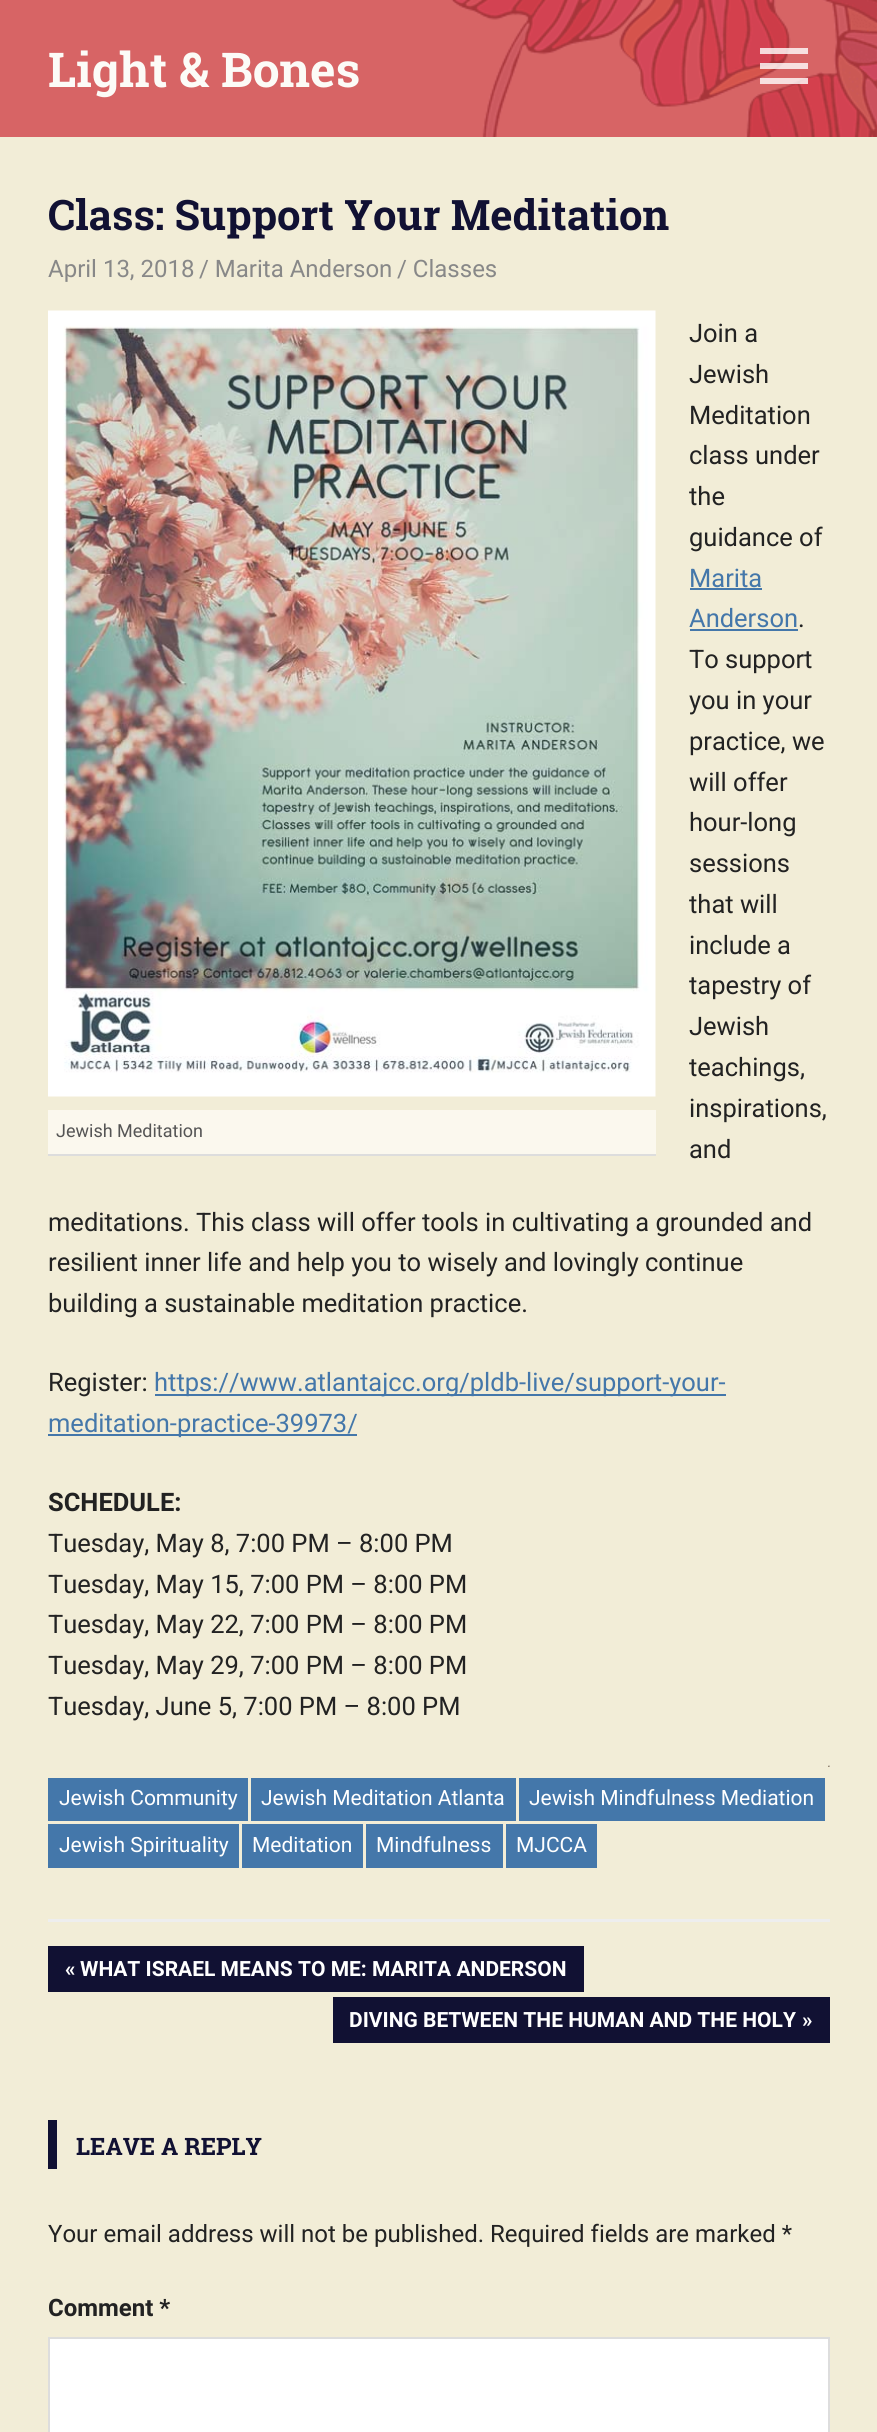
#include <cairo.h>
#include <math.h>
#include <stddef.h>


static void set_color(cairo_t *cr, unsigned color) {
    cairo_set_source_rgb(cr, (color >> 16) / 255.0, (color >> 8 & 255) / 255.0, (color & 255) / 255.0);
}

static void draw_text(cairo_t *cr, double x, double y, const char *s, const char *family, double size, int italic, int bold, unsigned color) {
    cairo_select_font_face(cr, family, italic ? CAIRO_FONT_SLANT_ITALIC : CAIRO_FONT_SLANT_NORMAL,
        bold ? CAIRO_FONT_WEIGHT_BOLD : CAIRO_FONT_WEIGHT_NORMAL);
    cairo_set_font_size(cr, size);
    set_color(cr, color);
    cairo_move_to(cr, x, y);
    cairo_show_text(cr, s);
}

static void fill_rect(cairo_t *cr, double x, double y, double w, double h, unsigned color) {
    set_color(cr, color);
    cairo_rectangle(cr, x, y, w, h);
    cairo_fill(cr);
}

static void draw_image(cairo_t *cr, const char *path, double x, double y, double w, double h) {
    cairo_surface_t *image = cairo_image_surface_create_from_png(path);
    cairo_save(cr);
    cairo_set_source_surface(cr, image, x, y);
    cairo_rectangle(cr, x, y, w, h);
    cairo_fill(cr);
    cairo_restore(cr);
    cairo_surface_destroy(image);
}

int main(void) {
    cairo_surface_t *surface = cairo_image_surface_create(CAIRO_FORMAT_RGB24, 877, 2432);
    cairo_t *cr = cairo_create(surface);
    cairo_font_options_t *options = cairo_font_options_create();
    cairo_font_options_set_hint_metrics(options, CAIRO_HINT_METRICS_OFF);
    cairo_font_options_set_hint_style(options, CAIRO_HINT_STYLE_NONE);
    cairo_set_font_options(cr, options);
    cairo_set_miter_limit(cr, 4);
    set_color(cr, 0xF2EDD7);
    cairo_paint(cr);
    draw_image(cr, "assets/img1.png", 451, 0, 426, 137);
    cairo_set_source_rgba(cr, 0.82, 0.263, 0.286, 0.8);
    cairo_rectangle(cr, 0, 0, 877, 137);
    cairo_fill(cr);
    draw_text(cr, 48, 87, "Light & Bones", "Roboto Slab", 48, 0, 1, 0xFCFBF7);
    cairo_set_source_rgba(cr, 1, 1, 1, 0.8);
    cairo_new_path(cr);
    cairo_move_to(cr, 760, 84);
    cairo_line_to(cr, 760, 78);
    cairo_line_to(cr, 808, 78);
    cairo_line_to(cr, 808, 84);
    cairo_close_path(cr);
    cairo_move_to(cr, 760, 48);
    cairo_line_to(cr, 808, 48);
    cairo_line_to(cr, 808, 54);
    cairo_line_to(cr, 760, 54);
    cairo_close_path(cr);
    cairo_move_to(cr, 760, 69);
    cairo_line_to(cr, 760, 63);
    cairo_line_to(cr, 808, 63);
    cairo_line_to(cr, 808, 69);
    cairo_close_path(cr);
    cairo_fill(cr);
    draw_text(cr, 48, 230, "Class: Support Your Meditation", "Roboto Slab", 42, 0, 1, 0x111133);
    draw_text(cr, 48, 277, "April 13, 2018", "Roboto", 24, 0, 0, 0x888888);
    draw_text(cr, 199, 277, "/ Marita Anderson", "Roboto", 24, 0, 0, 0x888888);
    draw_text(cr, 397, 277, "/ Classes", "Roboto", 24, 0, 0, 0x888888);
    draw_text(cr, 689, 342, "Join a", "Roboto", 25.5, 0, 0, 0x222222);
    draw_text(cr, 689, 383, "Jewish", "Roboto", 25.5, 0, 0, 0x222222);
    draw_text(cr, 689, 424, "Meditation", "Roboto", 25.5, 0, 0, 0x222222);
    draw_text(cr, 689, 464, "class under", "Roboto", 25.5, 0, 0, 0x222222);
    draw_text(cr, 689, 505, "the", "Roboto", 25.5, 0, 0, 0x222222);
    draw_text(cr, 689, 546, "guidance of", "Roboto", 25.5, 0, 0, 0x222222);
    draw_text(cr, 689, 587, "Marita", "Roboto", 25.5, 0, 0, 0x4477AA);
    fill_rect(cr, 690, 588, 72, 2, 0x4477AA);
    draw_text(cr, 689, 627, "Anderson", "Roboto", 25.5, 0, 0, 0x4477AA);
    fill_rect(cr, 690, 629, 108, 2, 0x4477AA);
    draw_text(cr, 798, 627, ".", "Roboto", 25.5, 0, 0, 0x222222);
    draw_text(cr, 689, 668, "To support", "Roboto", 25.5, 0, 0, 0x222222);
    draw_text(cr, 689, 709, "you in your", "Roboto", 25.5, 0, 0, 0x222222);
    draw_text(cr, 689, 750, "practice, we", "Roboto", 25.5, 0, 0, 0x222222);
    draw_text(cr, 689, 791, "will offer", "Roboto", 25.5, 0, 0, 0x222222);
    draw_text(cr, 689, 831, "hour-long", "Roboto", 25.5, 0, 0, 0x222222);
    draw_text(cr, 689, 872, "sessions", "Roboto", 25.5, 0, 0, 0x222222);
    draw_text(cr, 689, 913, "that will", "Roboto", 25.5, 0, 0, 0x222222);
    draw_text(cr, 689, 954, "include a", "Roboto", 25.5, 0, 0, 0x222222);
    draw_text(cr, 689, 994, "tapestry of", "Roboto", 25.5, 0, 0, 0x222222);
    draw_text(cr, 689, 1035, "Jewish", "Roboto", 25.5, 0, 0, 0x222222);
    draw_text(cr, 689, 1076, "teachings,", "Roboto", 25.5, 0, 0, 0x222222);
    draw_text(cr, 689, 1117, "inspirations,", "Roboto", 25.5, 0, 0, 0x222222);
    draw_text(cr, 689, 1158, "and", "Roboto", 25.5, 0, 0, 0x222222);
    draw_text(cr, 48, 1231, "meditations. This class will offer tools in cultivating a grounded and", "Roboto", 25.5, 0, 0, 0x222222);
    draw_text(cr, 48, 1271, "resilient inner life and help you to wisely and lovingly continue", "Roboto", 25.5, 0, 0, 0x222222);
    draw_text(cr, 48, 1312, "building a sustainable meditation practice.", "Roboto", 25.5, 0, 0, 0x222222);
    draw_image(cr, "assets/img2.png", 48, 310, 608, 787);
    fill_rect(cr, 48, 1110, 608, 44, 0xFBF8EE);
    fill_rect(cr, 48, 1154, 608, 2, 0xDDDDDD);
    draw_text(cr, 56, 1137, "Jewish Meditation", "Roboto", 18, 0, 0, 0x555555);
    draw_text(cr, 48, 1391, "Register:", "Roboto", 25.5, 0, 0, 0x222222);
    fill_rect(cr, 155, 1394, 571, 2, 0x4477AA);
    draw_text(cr, 154, 1391, "https://www.atlantajcc.org/pldb-live/support-your-", "Roboto", 25.5, 0, 0, 0x4477AA);
    fill_rect(cr, 48, 1434, 309, 2, 0x4477AA);
    draw_text(cr, 48, 1432, "meditation-practice-39973/", "Roboto", 25.5, 0, 0, 0x4477AA);
    draw_text(cr, 48, 1511, "SCHEDULE:", "Roboto", 25.5, 0, 1, 0x222222);
    draw_text(cr, 48, 1552, "Tuesday, May 8, 7:00 PM – 8:00 PM", "Roboto", 25.5, 0, 0, 0x222222);
    draw_text(cr, 48, 1593, "Tuesday, May 15, 7:00 PM – 8:00 PM", "Roboto", 25.5, 0, 0, 0x222222);
    draw_text(cr, 48, 1633, "Tuesday, May 22, 7:00 PM – 8:00 PM", "Roboto", 25.5, 0, 0, 0x222222);
    draw_text(cr, 48, 1674, "Tuesday, May 29, 7:00 PM – 8:00 PM", "Roboto", 25.5, 0, 0, 0x222222);
    draw_text(cr, 48, 1715, "Tuesday, June 5, 7:00 PM – 8:00 PM", "Roboto", 25.5, 0, 0, 0x222222);
    draw_image(cr, "assets/img3.png", 828, 1765, 2, 2);
    fill_rect(cr, 48, 1778, 200, 43, 0x4477AA);
    draw_text(cr, 59, 1805, "Jewish Community", "Roboto", 21, 0, 0, 0xFFFFFF);
    fill_rect(cr, 251, 1778, 265, 43, 0x4477AA);
    draw_text(cr, 261, 1805, "Jewish Meditation Atlanta", "Roboto", 21, 0, 0, 0xFFFFFF);
    fill_rect(cr, 519, 1778, 306, 43, 0x4477AA);
    draw_text(cr, 529, 1805, "Jewish Mindfulness Mediation", "Roboto", 21, 0, 0, 0xFFFFFF);
    fill_rect(cr, 48, 1824, 191, 44, 0x4477AA);
    draw_text(cr, 59, 1852, "Jewish Spirituality", "Roboto", 21, 0, 0, 0xFFFFFF);
    fill_rect(cr, 242, 1824, 121, 44, 0x4477AA);
    draw_text(cr, 252, 1852, "Meditation", "Roboto", 21, 0, 0, 0xFFFFFF);
    fill_rect(cr, 366, 1824, 137, 44, 0x4477AA);
    draw_text(cr, 376, 1852, "Mindfulness", "Roboto", 21, 0, 0, 0xFFFFFF);
    fill_rect(cr, 506, 1824, 91, 44, 0x4477AA);
    draw_text(cr, 516, 1852, "MJCCA", "Roboto", 21, 0, 0, 0xFFFFFF);
    fill_rect(cr, 48, 1919, 782, 3, 0xEEEEEE);
    fill_rect(cr, 48, 1946, 536, 46, 0x111133);
    draw_text(cr, 65, 1976, "«", "Roboto", 21, 0, 1, 0xFFFFFF);
    draw_text(cr, 80, 1976, "WHAT ISRAEL MEANS TO ME: MARITA ANDERSON", "Roboto", 21, 0, 1, 0xFFFFFF);
    fill_rect(cr, 333, 1997, 497, 46, 0x111133);
    draw_text(cr, 349, 2027, "DIVING BETWEEN THE HUMAN AND THE HOLY", "Roboto", 21, 0, 1, 0xFFFFFF);
    draw_text(cr, 802, 2027, "»", "Roboto", 21, 0, 1, 0xFFFFFF);
    fill_rect(cr, 48, 2120, 9, 49, 0x111133);
    draw_text(cr, 76, 2155, "LEAVE A REPLY", "Roboto Slab", 24, 0, 1, 0x111133);
    draw_text(cr, 48, 2242, "Your email address will not be published. Required fields are marked *", "Roboto", 24, 0, 0, 0x222222);
    draw_text(cr, 48, 2316, "Comment *", "Roboto", 24, 0, 1, 0x222222);
    set_color(cr, 0xFFFFFF);
    cairo_rectangle(cr, 49, 2338, 780, 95);
    cairo_fill_preserve(cr);
    set_color(cr, 0xDDDDDD);
    cairo_stroke(cr);
    cairo_surface_write_to_png(surface, "output.png");
    cairo_font_options_destroy(options);
    cairo_destroy(cr);
    cairo_surface_destroy(surface);
    return 0;
}
